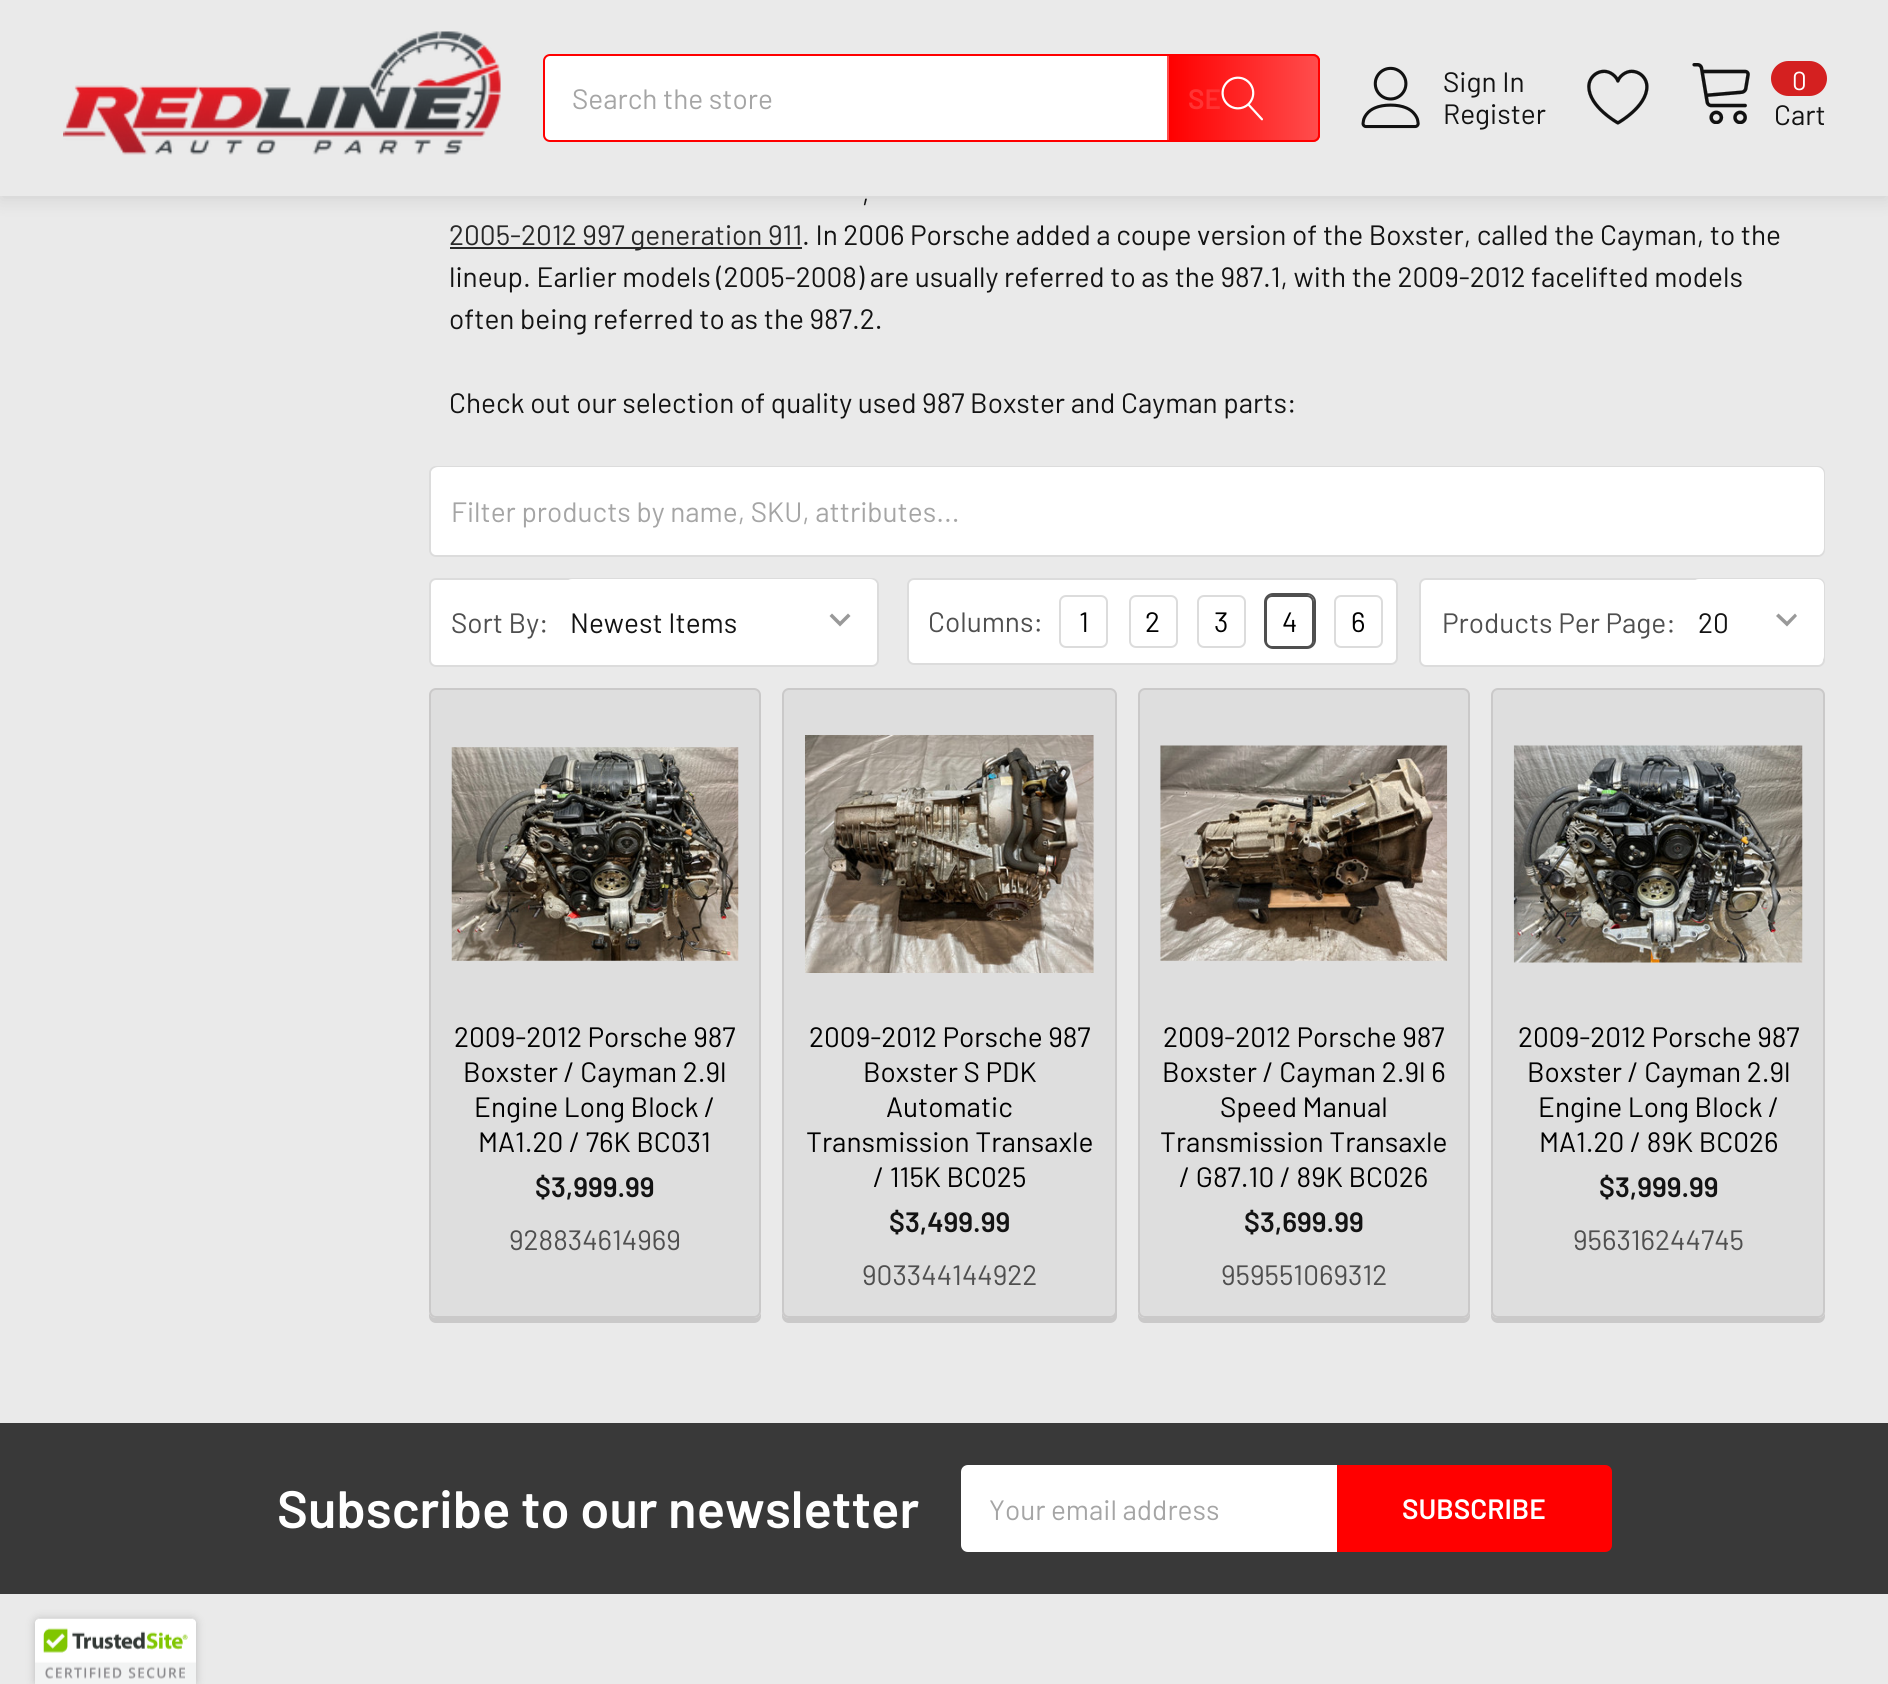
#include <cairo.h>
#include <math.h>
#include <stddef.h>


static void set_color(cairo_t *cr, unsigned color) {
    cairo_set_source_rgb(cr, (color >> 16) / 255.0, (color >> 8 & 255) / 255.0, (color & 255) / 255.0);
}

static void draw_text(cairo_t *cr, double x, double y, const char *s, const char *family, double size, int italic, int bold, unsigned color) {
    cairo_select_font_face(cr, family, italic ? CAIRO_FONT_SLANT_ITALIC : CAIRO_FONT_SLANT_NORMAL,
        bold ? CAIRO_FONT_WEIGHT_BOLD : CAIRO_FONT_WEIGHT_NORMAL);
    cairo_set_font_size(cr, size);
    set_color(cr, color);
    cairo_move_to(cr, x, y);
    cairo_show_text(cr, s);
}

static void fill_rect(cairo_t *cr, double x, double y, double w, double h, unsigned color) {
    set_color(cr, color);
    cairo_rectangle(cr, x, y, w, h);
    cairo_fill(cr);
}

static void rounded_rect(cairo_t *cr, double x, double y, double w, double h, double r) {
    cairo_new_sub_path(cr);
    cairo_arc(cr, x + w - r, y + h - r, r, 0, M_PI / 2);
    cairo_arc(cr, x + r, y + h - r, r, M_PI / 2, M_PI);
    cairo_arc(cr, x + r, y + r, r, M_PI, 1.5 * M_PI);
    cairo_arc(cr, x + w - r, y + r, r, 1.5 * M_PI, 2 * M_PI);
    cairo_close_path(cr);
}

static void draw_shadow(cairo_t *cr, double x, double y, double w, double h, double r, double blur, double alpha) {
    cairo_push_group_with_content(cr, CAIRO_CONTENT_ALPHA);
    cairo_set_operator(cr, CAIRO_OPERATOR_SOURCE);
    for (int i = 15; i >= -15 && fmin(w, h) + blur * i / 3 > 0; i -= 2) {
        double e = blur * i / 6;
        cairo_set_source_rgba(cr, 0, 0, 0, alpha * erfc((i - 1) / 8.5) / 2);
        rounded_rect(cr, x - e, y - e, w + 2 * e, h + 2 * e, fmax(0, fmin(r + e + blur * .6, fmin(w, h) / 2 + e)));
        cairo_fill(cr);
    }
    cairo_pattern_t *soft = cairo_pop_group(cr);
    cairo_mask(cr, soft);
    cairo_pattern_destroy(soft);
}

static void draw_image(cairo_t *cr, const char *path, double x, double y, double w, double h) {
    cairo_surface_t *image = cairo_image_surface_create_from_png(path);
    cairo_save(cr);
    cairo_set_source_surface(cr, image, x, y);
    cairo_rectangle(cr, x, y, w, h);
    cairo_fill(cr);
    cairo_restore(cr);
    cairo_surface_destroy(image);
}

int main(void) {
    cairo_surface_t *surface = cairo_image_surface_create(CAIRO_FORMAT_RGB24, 1888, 1684);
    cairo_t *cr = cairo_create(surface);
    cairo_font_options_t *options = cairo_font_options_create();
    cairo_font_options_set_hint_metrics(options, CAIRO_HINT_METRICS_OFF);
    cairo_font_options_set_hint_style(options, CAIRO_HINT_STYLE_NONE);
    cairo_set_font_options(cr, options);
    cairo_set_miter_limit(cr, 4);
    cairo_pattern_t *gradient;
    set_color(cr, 0xEAEAEA);
    cairo_paint(cr);
    set_color(cr, 0x000000);
    draw_shadow(cr, 0, 4, 1888, 196, 0, 9, 0.1);
    fill_rect(cr, 0, 0, 1888, 196, 0xEAEAEA);
    draw_image(cr, "assets/img1.png", 63, 31, 438, 124);
    set_color(cr, 0xFFFFFF);
    rounded_rect(cr, 544, 55, 775, 86, 6);
    cairo_fill_preserve(cr);
    set_color(cr, 0xFF0000);
    cairo_stroke(cr);
    draw_text(cr, 572, 109, "Search the store", "Barlow", 28, 0, 0, 0xA5A5A5);
    cairo_save(cr);
    cairo_new_path(cr);
    cairo_move_to(cr, 1167, 54);
    cairo_line_to(cr, 1313, 54);
    cairo_curve_to(cr, 1317, 54, 1320, 57, 1320, 61);
    cairo_line_to(cr, 1320, 135);
    cairo_curve_to(cr, 1320, 139, 1317, 142, 1313, 142);
    cairo_line_to(cr, 1167, 142);
    cairo_close_path(cr);
    cairo_clip(cr);
    gradient = cairo_pattern_create_linear(1169, 98, 1318, 98);
    cairo_pattern_add_color_stop_rgba(gradient, 0, 1, 0, 0, 1);
    cairo_pattern_add_color_stop_rgba(gradient, 1, 1, 0, 0, 0.7);
    cairo_set_source(cr, gradient);
    cairo_pattern_destroy(gradient);
    cairo_rectangle(cr, 1169, 54, 149, 88);
    cairo_fill(cr);
    cairo_restore(cr);
    draw_text(cr, 1188, 109, "SE", "Barlow SemiBold", 28, 0, 0, 0xFF3333);
    gradient = cairo_pattern_create_linear(1020, 98, 1169, 98);
    cairo_pattern_add_color_stop_rgba(gradient, 0, 1, 0, 0, 1);
    cairo_pattern_add_color_stop_rgba(gradient, 1, 1, 0, 0, 0.7);
    cairo_set_source(cr, gradient);
    cairo_pattern_destroy(gradient);
    cairo_rectangle(cr, 1167, 54, 2, 88);
    cairo_fill(cr);
    cairo_save(cr);
    cairo_new_path(cr);
    cairo_move_to(cr, 1167, 54);
    cairo_line_to(cr, 1313, 54);
    cairo_curve_to(cr, 1317, 54, 1320, 57, 1320, 61);
    cairo_line_to(cr, 1320, 135);
    cairo_curve_to(cr, 1320, 139, 1317, 142, 1313, 142);
    cairo_line_to(cr, 1167, 142);
    cairo_close_path(cr);
    cairo_clip(cr);
    gradient = cairo_pattern_create_linear(1318, 98, 1467, 98);
    cairo_pattern_add_color_stop_rgba(gradient, 0, 1, 0, 0, 1);
    cairo_pattern_add_color_stop_rgba(gradient, 1, 1, 0, 0, 0.7);
    cairo_set_source(cr, gradient);
    cairo_pattern_destroy(gradient);
    cairo_rectangle(cr, 1318, 54, 2, 88);
    cairo_fill(cr);
    cairo_restore(cr);
    draw_image(cr, "assets/img2.png", 1221, 76, 42, 45);
    draw_image(cr, "assets/img3.png", 1361, 66, 59, 63);
    draw_text(cr, 1443, 92, "Sign In", "Barlow", 28, 0, 0, 0x131313);
    draw_text(cr, 1443, 124, "Register", "Barlow", 28, 0, 0, 0x131313);
    draw_image(cr, "assets/img4.png", 1587, 69, 62, 56);
    draw_image(cr, "assets/img5.png", 1692, 63, 58, 61);
    set_color(cr, 0xD42020);
    rounded_rect(cr, 1771, 61, 56, 35, 17.5);
    cairo_fill(cr);
    draw_text(cr, 1792, 90, "0", "Barlow", 26, 0, 0, 0xFFFFFF);
    draw_text(cr, 1774, 125, "Cart", "Barlow", 28, 0, 0, 0x131313);
    draw_text(cr, 862, 203, ",", "Barlow", 28, 0, 0, 0x131313);
    fill_rect(cr, 450, 247, 352, 2, 0x282828);
    draw_text(cr, 449, 245, "2005-2012 997 generation 911", "Barlow", 28, 0, 0, 0x282828);
    draw_text(cr, 802, 245, ". In 2006 Porsche added a coupe version of the Boxster, called the Cayman, to the", "Barlow", 28, 0, 0, 0x131313);
    draw_text(cr, 449, 287, "lineup. Earlier models (2005-2008) are usually referred to as the 987.1, with the 2009-2012 facelifted models", "Barlow", 28, 0, 0, 0x131313);
    draw_text(cr, 449, 329, "often being referred to as the 987.2.", "Barlow", 28, 0, 0, 0x131313);
    draw_text(cr, 449, 413, "Check out our selection of quality used 987 Boxster and Cayman parts:", "Barlow", 28, 0, 0, 0x131313);
    set_color(cr, 0xFFFFFF);
    rounded_rect(cr, 430, 467, 1394, 89, 6);
    cairo_fill_preserve(cr);
    set_color(cr, 0xDCDCDC);
    cairo_stroke(cr);
    set_color(cr, 0xFFFFFF);
    rounded_rect(cr, 431, 467, 1393, 88, 7);
    cairo_fill(cr);
    draw_text(cr, 451, 522, "Filter products by name, SKU, attributes...", "Barlow", 28, 0, 0, 0xA5A5A5);
    set_color(cr, 0xFFFFFF);
    rounded_rect(cr, 430, 579, 448, 87, 6);
    cairo_fill_preserve(cr);
    set_color(cr, 0xDCDCDC);
    cairo_stroke(cr);
    draw_text(cr, 451, 633, "Sort By:", "Barlow", 28, 0, 0, 0x4F4F4F);
    set_color(cr, 0xFFFFFF);
    rounded_rect(cr, 565, 579, 312, 84, 7);
    cairo_fill(cr);
    set_color(cr, 0x999999);
    cairo_new_path(cr);
    cairo_move_to(cr, 848, 613.5);
    cairo_line_to(cr, 840, 621.5);
    cairo_line_to(cr, 832, 613.5);
    cairo_line_to(cr, 829.5, 616);
    cairo_line_to(cr, 840, 626.5);
    cairo_line_to(cr, 850.5, 616);
    cairo_close_path(cr);
    cairo_fill(cr);
    draw_text(cr, 570, 633, "Newest Items", "Barlow", 28, 0, 0, 0x131313);
    set_color(cr, 0xFFFFFF);
    rounded_rect(cr, 908, 579, 489, 85, 6);
    cairo_fill_preserve(cr);
    set_color(cr, 0xDCDCDC);
    cairo_stroke(cr);
    draw_text(cr, 928, 632, "Columns:", "Barlow", 28, 0, 0, 0x4F4F4F);
    rounded_rect(cr, 1060, 596, 47, 51, 6);
    set_color(cr, 0xDCDCDC);
    cairo_stroke(cr);
    draw_text(cr, 1079, 632, "1", "Barlow", 28, 0, 0, 0x000000);
    rounded_rect(cr, 1130, 596, 47, 51, 6);
    set_color(cr, 0xDCDCDC);
    cairo_stroke(cr);
    draw_text(cr, 1145, 632, "2", "Barlow", 28, 0, 0, 0x000000);
    rounded_rect(cr, 1198, 596, 47, 51, 6);
    set_color(cr, 0xDCDCDC);
    cairo_stroke(cr);
    draw_text(cr, 1214, 632, "3", "Barlow", 28, 0, 0, 0x000000);
    rounded_rect(cr, 1265, 594, 50, 54, 8);
    set_color(cr, 0x4F4F4F);
    cairo_stroke(cr);
    rounded_rect(cr, 1266, 596, 47, 51, 6);
    cairo_stroke(cr);
    draw_text(cr, 1282, 632, "4", "Barlow", 28, 0, 0, 0x000000);
    rounded_rect(cr, 1335, 596, 47, 51, 6);
    set_color(cr, 0xDCDCDC);
    cairo_stroke(cr);
    draw_text(cr, 1351, 632, "6", "Barlow", 28, 0, 0, 0x000000);
    set_color(cr, 0xFFFFFF);
    rounded_rect(cr, 1420, 579, 404, 87, 6);
    cairo_fill_preserve(cr);
    set_color(cr, 0xDCDCDC);
    cairo_stroke(cr);
    draw_text(cr, 1442, 633, "Products Per Page:", "Barlow", 28, 0, 0, 0x4F4F4F);
    set_color(cr, 0xFFFFFF);
    rounded_rect(cr, 1692, 579, 132, 84, 7);
    cairo_fill(cr);
    set_color(cr, 0x999999);
    cairo_new_path(cr);
    cairo_move_to(cr, 1795, 613.5);
    cairo_line_to(cr, 1787, 621.5);
    cairo_line_to(cr, 1778.5, 613.5);
    cairo_line_to(cr, 1776, 616);
    cairo_line_to(cr, 1787, 626.5);
    cairo_line_to(cr, 1797, 616);
    cairo_close_path(cr);
    cairo_fill(cr);
    draw_text(cr, 1698, 633, "20", "Barlow", 28, 0, 0, 0x131313);
    set_color(cr, 0xCAC9C9);
    cairo_new_path(cr);
    cairo_move_to(cr, 429, 1313);
    cairo_line_to(cr, 429, 1316);
    cairo_curve_to(cr, 429, 1320, 432, 1323, 436, 1323);
    cairo_line_to(cr, 754, 1323);
    cairo_curve_to(cr, 758, 1323, 761, 1320, 761, 1316);
    cairo_line_to(cr, 761, 1313);
    cairo_curve_to(cr, 760, 1316, 757, 1318, 754, 1318);
    cairo_line_to(cr, 436, 1318);
    cairo_curve_to(cr, 433, 1318, 430, 1316, 429, 1313);
    cairo_close_path(cr);
    cairo_fill(cr);
    set_color(cr, 0xDEDEDE);
    rounded_rect(cr, 430, 689, 330, 628, 6);
    cairo_fill_preserve(cr);
    set_color(cr, 0xCAC9C9);
    cairo_stroke(cr);
    draw_image(cr, "assets/img6.png", 451, 747, 288, 214);
    draw_text(cr, 454, 1047, "2009-2012 Porsche 987", "Barlow", 28, 0, 0, 0x000000);
    draw_text(cr, 463, 1082, "Boxster / Cayman 2.9l", "Barlow", 28, 0, 0, 0x000000);
    draw_text(cr, 474, 1117, "Engine Long Block /", "Barlow", 28, 0, 0, 0x000000);
    draw_text(cr, 478, 1152, "MA1.20 / 76K BC031", "Barlow", 28, 0, 0, 0x000000);
    draw_text(cr, 535, 1197, "$3,999.99", "Barlow SemiBold", 28, 0, 0, 0x131313);
    draw_text(cr, 509, 1250, "928834614969", "Barlow", 28, 0, 0, 0x4F4F4F);
    set_color(cr, 0xCAC9C9);
    cairo_new_path(cr);
    cairo_move_to(cr, 782, 698);
    cairo_line_to(cr, 782, 1316);
    cairo_curve_to(cr, 782, 1320, 785, 1323, 789, 1323);
    cairo_line_to(cr, 1110, 1323);
    cairo_curve_to(cr, 1114, 1323, 1117, 1320, 1117, 1316);
    cairo_line_to(cr, 1117, 700);
    cairo_line_to(cr, 1116, 697);
    cairo_line_to(cr, 1116, 1311);
    cairo_curve_to(cr, 1116, 1315, 1113, 1318, 1110, 1318);
    cairo_line_to(cr, 789, 1318);
    cairo_curve_to(cr, 785, 1318, 782, 1315, 782, 1311);
    cairo_close_path(cr);
    cairo_fill(cr);
    set_color(cr, 0xDEDEDE);
    rounded_rect(cr, 783, 689, 333, 628, 6);
    cairo_fill_preserve(cr);
    set_color(cr, 0xCAC9C9);
    cairo_stroke(cr);
    draw_image(cr, "assets/img7.png", 805, 735, 289, 238);
    draw_text(cr, 809, 1047, "2009-2012 Porsche 987", "Barlow", 28, 0, 0, 0x000000);
    draw_text(cr, 863, 1082, "Boxster S PDK", "Barlow", 28, 0, 0, 0x000000);
    draw_text(cr, 886, 1117, "Automatic", "Barlow", 28, 0, 0, 0x000000);
    draw_text(cr, 806, 1152, "Transmission Transaxle", "Barlow", 28, 0, 0, 0x000000);
    draw_text(cr, 873, 1187, "/ 115K BC025", "Barlow", 28, 0, 0, 0x000000);
    draw_text(cr, 889, 1232, "$3,499.99", "Barlow SemiBold", 28, 0, 0, 0x131313);
    draw_text(cr, 862, 1285, "903344144922", "Barlow", 28, 0, 0, 0x4F4F4F);
    set_color(cr, 0xCAC9C9);
    cairo_new_path(cr);
    cairo_move_to(cr, 1138, 1313);
    cairo_line_to(cr, 1138, 1316);
    cairo_curve_to(cr, 1138, 1320, 1141, 1323, 1145, 1323);
    cairo_line_to(cr, 1463, 1323);
    cairo_curve_to(cr, 1467, 1323, 1470, 1320, 1470, 1316);
    cairo_line_to(cr, 1470, 1311);
    cairo_curve_to(cr, 1470, 1315, 1467, 1318, 1463, 1318);
    cairo_line_to(cr, 1144, 1318);
    cairo_curve_to(cr, 1142, 1318, 1139, 1316, 1138, 1313);
    cairo_close_path(cr);
    cairo_fill(cr);
    set_color(cr, 0xDEDEDE);
    rounded_rect(cr, 1139, 689, 330, 628, 6);
    cairo_fill_preserve(cr);
    set_color(cr, 0xCAC9C9);
    cairo_stroke(cr);
    draw_image(cr, "assets/img8.png", 1160, 745, 288, 216);
    draw_text(cr, 1163, 1047, "2009-2012 Porsche 987", "Barlow", 28, 0, 0, 0x000000);
    draw_text(cr, 1162, 1082, "Boxster / Cayman 2.9l 6", "Barlow", 28, 0, 0, 0x000000);
    draw_text(cr, 1220, 1117, "Speed Manual", "Barlow", 28, 0, 0, 0x000000);
    draw_text(cr, 1160, 1152, "Transmission Transaxle", "Barlow", 28, 0, 0, 0x000000);
    draw_text(cr, 1179, 1187, "/ G87.10 / 89K BC026", "Barlow", 28, 0, 0, 0x000000);
    draw_text(cr, 1244, 1232, "$3,699.99", "Barlow SemiBold", 28, 0, 0, 0x131313);
    draw_text(cr, 1221, 1285, "959551069312", "Barlow", 28, 0, 0, 0x4F4F4F);
    set_color(cr, 0xCAC9C9);
    cairo_new_path(cr);
    cairo_move_to(cr, 1491, 1311);
    cairo_line_to(cr, 1491, 1316);
    cairo_curve_to(cr, 1491, 1320, 1494, 1323, 1498, 1323);
    cairo_line_to(cr, 1818, 1323);
    cairo_curve_to(cr, 1822, 1323, 1825, 1320, 1825, 1316);
    cairo_line_to(cr, 1825, 1313);
    cairo_curve_to(cr, 1824, 1316, 1821, 1318, 1818, 1318);
    cairo_line_to(cr, 1498, 1318);
    cairo_curve_to(cr, 1494, 1318, 1491, 1315, 1491, 1311);
    cairo_close_path(cr);
    cairo_fill(cr);
    set_color(cr, 0xDEDEDE);
    rounded_rect(cr, 1492, 689, 332, 628, 6);
    cairo_fill_preserve(cr);
    set_color(cr, 0xCAC9C9);
    cairo_stroke(cr);
    draw_image(cr, "assets/img9.png", 1513, 745, 290, 218);
    draw_text(cr, 1518, 1047, "2009-2012 Porsche 987", "Barlow", 28, 0, 0, 0x000000);
    draw_text(cr, 1527, 1082, "Boxster / Cayman 2.9l", "Barlow", 28, 0, 0, 0x000000);
    draw_text(cr, 1538, 1117, "Engine Long Block /", "Barlow", 28, 0, 0, 0x000000);
    draw_text(cr, 1539, 1152, "MA1.20 / 89K BC026", "Barlow", 28, 0, 0, 0x000000);
    draw_text(cr, 1599, 1197, "$3,999.99", "Barlow SemiBold", 28, 0, 0, 0x131313);
    draw_text(cr, 1573, 1250, "956316244745", "Barlow", 28, 0, 0, 0x4F4F4F);
    fill_rect(cr, 0, 1423, 1888, 171, 0x393939);
    draw_text(cr, 277, 1528, "Subscribe to our newsletter", "Barlow SemiBold", 52.5, 0, 0, 0xFFFFFF);
    cairo_new_path(cr);
    cairo_move_to(cr, 968, 1465);
    cairo_line_to(cr, 1337, 1465);
    cairo_line_to(cr, 1337, 1552);
    cairo_line_to(cr, 968, 1552);
    cairo_curve_to(cr, 964, 1552, 961, 1549, 961, 1545);
    cairo_line_to(cr, 961, 1472);
    cairo_curve_to(cr, 961, 1468, 964, 1465, 968, 1465);
    cairo_close_path(cr);
    cairo_fill(cr);
    draw_text(cr, 989, 1520, "Your email address", "Barlow", 28, 0, 0, 0xA5A5A5);
    set_color(cr, 0xFF0000);
    cairo_new_path(cr);
    cairo_move_to(cr, 1338, 1466);
    cairo_line_to(cr, 1605, 1466);
    cairo_curve_to(cr, 1608.5, 1466, 1611, 1468.5, 1611, 1472);
    cairo_line_to(cr, 1611, 1545);
    cairo_curve_to(cr, 1611, 1548.5, 1608.5, 1551, 1605, 1551);
    cairo_line_to(cr, 1338, 1551);
    cairo_close_path(cr);
    cairo_fill_preserve(cr);
    cairo_stroke(cr);
    draw_text(cr, 1402, 1519, "SUBSCRIBE", "Barlow SemiBold", 28, 0, 0, 0xFFFFFF);
    set_color(cr, 0x000000);
    draw_shadow(cr, 35, 1619, 161, 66, 4, 4.5, 0.2);
    draw_image(cr, "assets/img10.png", 35, 1618, 161, 66);
    cairo_surface_write_to_png(surface, "output.png");
    cairo_font_options_destroy(options);
    cairo_destroy(cr);
    cairo_surface_destroy(surface);
    return 0;
}
